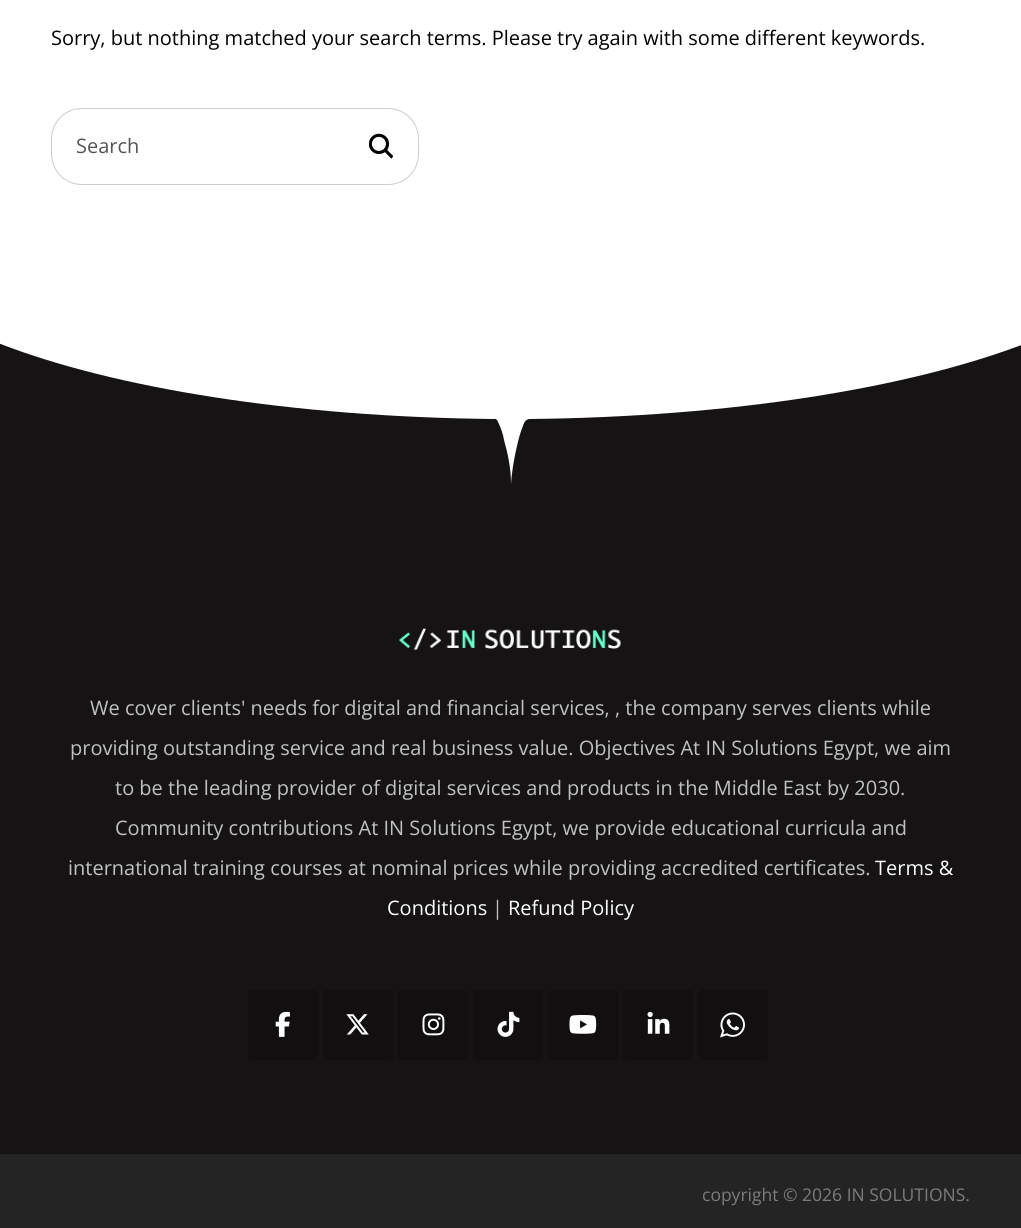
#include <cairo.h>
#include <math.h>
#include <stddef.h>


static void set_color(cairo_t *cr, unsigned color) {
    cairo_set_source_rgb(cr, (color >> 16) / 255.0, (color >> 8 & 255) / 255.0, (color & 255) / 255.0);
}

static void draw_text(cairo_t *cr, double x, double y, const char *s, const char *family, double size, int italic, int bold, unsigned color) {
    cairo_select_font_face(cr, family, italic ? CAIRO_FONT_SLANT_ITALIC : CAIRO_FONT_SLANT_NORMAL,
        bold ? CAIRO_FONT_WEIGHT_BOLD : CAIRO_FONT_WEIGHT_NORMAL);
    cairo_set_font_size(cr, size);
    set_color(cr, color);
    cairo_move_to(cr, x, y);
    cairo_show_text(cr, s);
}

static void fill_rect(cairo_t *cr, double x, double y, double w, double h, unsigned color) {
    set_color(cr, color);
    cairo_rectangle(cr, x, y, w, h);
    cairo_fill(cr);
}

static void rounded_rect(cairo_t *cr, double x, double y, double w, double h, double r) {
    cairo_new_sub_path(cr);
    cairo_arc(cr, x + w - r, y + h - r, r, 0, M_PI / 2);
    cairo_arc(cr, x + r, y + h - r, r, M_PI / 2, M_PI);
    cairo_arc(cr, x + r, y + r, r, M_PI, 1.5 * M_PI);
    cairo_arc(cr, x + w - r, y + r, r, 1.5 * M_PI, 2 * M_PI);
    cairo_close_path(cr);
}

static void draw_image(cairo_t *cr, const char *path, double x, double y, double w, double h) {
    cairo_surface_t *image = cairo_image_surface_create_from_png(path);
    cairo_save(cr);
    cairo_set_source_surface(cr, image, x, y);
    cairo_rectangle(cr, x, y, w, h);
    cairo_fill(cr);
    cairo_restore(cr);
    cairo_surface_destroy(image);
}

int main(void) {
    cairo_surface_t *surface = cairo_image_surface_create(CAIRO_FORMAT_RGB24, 1021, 1228);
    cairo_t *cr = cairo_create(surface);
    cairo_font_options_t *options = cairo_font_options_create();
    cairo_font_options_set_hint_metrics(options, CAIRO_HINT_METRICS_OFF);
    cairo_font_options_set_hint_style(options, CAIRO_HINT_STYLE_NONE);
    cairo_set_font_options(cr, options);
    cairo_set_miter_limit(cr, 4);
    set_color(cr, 0xFFFFFF);
    cairo_paint(cr);
    draw_text(cr, 51, 45, "Sorry, but nothing matched your search terms. Please try again with some different keywords.", "Open Sans", 20, 0, 0, 0x000000);
    rounded_rect(cr, 51.5, 108.5, 367, 76, 30.5);
    set_color(cr, 0xCCCCCC);
    cairo_set_line_width(cr, 1);
    cairo_stroke(cr);
    draw_text(cr, 76, 153, "Search", "Open Sans", 20, 0, 0, 0x535353);
    draw_image(cr, "assets/img1.png", 369, 133, 24, 26);
    set_color(cr, 0x151313);
    cairo_new_path(cr);
    cairo_move_to(cr, -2, 536);
    cairo_line_to(cr, -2, 343);
    cairo_curve_to(cr, 113, 388, 292, 417, 494, 419);
    cairo_curve_to(cr, 496, 418, 498, 421, 498, 422);
    cairo_curve_to(cr, 501, 428, 503, 434, 504, 440);
    cairo_curve_to(cr, 508, 454, 511, 469, 511, 484);
    cairo_curve_to(cr, 512, 465, 519, 434, 523, 426);
    cairo_curve_to(cr, 523, 426, 524, 420, 529, 419);
    cairo_curve_to(cr, 731, 417, 909, 388, 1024, 344);
    cairo_line_to(cr, 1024, 536);
    cairo_close_path(cr);
    cairo_fill(cr);
    fill_rect(cr, 0, 536, 1021, 618, 0x151313);
    draw_image(cr, "assets/img2.png", 399, 628, 222, 22);
    draw_text(cr, 90, 715, "We cover clients' needs for digital and financial services, , the company serves clients while", "Open Sans", 20, 0, 0, 0xC1C1C1);
    draw_text(cr, 70, 755, "providing outstanding service and real business value. Objectives At IN Solutions Egypt, we aim", "Open Sans", 20, 0, 0, 0xC1C1C1);
    draw_text(cr, 115, 795, "to be the leading provider of digital services and products in the Middle East by 2030.", "Open Sans", 20, 0, 0, 0xC1C1C1);
    draw_text(cr, 115, 835, "Community contributions At IN Solutions Egypt, we provide educational curricula and", "Open Sans", 20, 0, 0, 0xC1C1C1);
    draw_text(cr, 68, 875, "international training courses at nominal prices while providing accredited certificates.", "Open Sans", 20, 0, 0, 0xC1C1C1);
    draw_text(cr, 875, 875, "Terms &", "Open Sans", 20, 0, 0, 0xFFFFFF);
    draw_text(cr, 387, 915, "Conditions", "Open Sans", 20, 0, 0, 0xFFFFFF);
    draw_text(cr, 492, 915, "|", "Open Sans", 20, 0, 0, 0xC1C1C1);
    draw_text(cr, 508, 915, "Refund Policy", "Open Sans", 20, 0, 0, 0xFFFFFF);
    set_color(cr, 0x110F0F);
    rounded_rect(cr, 248, 990, 70, 70, 4);
    cairo_fill(cr);
    draw_image(cr, "assets/img3.png", 275, 1011, 15, 26);
    rounded_rect(cr, 323, 990, 70, 70, 4);
    cairo_fill(cr);
    draw_image(cr, "assets/img4.png", 346, 1014, 23, 21);
    rounded_rect(cr, 398, 990, 70, 70, 4);
    cairo_fill(cr);
    draw_image(cr, "assets/img5.png", 422, 1013, 23, 23);
    rounded_rect(cr, 473, 990, 70, 70, 4);
    cairo_fill(cr);
    draw_image(cr, "assets/img6.png", 497, 1011, 23, 26);
    rounded_rect(cr, 548, 990, 70, 70, 4);
    cairo_fill(cr);
    draw_image(cr, "assets/img7.png", 569, 1015, 28, 19);
    rounded_rect(cr, 623, 990, 70, 70, 4);
    cairo_fill(cr);
    draw_image(cr, "assets/img8.png", 647, 1011, 23, 23);
    rounded_rect(cr, 698, 990, 70, 70, 4);
    cairo_fill(cr);
    draw_image(cr, "assets/img9.png", 720, 1012, 25, 26);
    fill_rect(cr, 0, 1154, 1021, 74, 0x242424);
    draw_text(cr, 702, 1201, "copyright © 2026 IN SOLUTIONS.", "Open Sans", 17.5, 0, 0, 0x7C7C7C);
    cairo_surface_write_to_png(surface, "output.png");
    cairo_font_options_destroy(options);
    cairo_destroy(cr);
    cairo_surface_destroy(surface);
    return 0;
}
